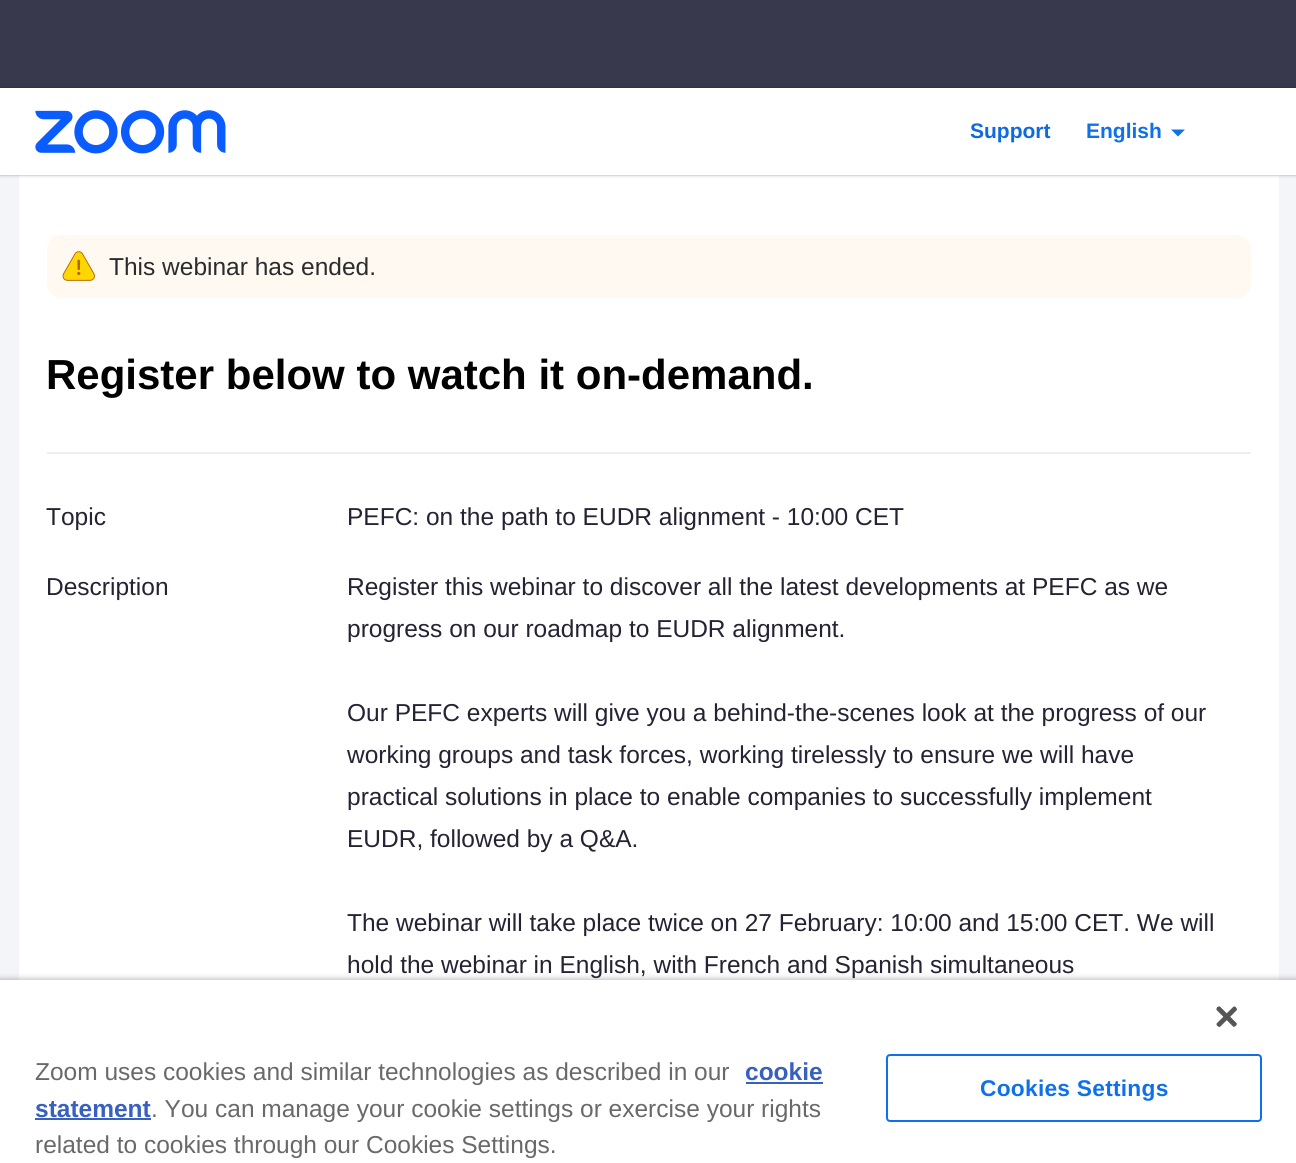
#include <cairo.h>
#include <math.h>
#include <stddef.h>


static void set_color(cairo_t *cr, unsigned color) {
    cairo_set_source_rgb(cr, (color >> 16) / 255.0, (color >> 8 & 255) / 255.0, (color & 255) / 255.0);
}

static void draw_text(cairo_t *cr, double x, double y, const char *s, const char *family, double size, int italic, int bold, unsigned color) {
    cairo_select_font_face(cr, family, italic ? CAIRO_FONT_SLANT_ITALIC : CAIRO_FONT_SLANT_NORMAL,
        bold ? CAIRO_FONT_WEIGHT_BOLD : CAIRO_FONT_WEIGHT_NORMAL);
    cairo_set_font_size(cr, size);
    set_color(cr, color);
    cairo_move_to(cr, x, y);
    cairo_show_text(cr, s);
}

static void draw_spaced(cairo_t *cr, double x, double y, const char *s, double letter, double word) {
    cairo_move_to(cr, x, y);
    while (*s) {
        char ch[5] = {0};
        int n = 0;
        do ch[n++] = *s++; while ((*s & 0xC0) == 0x80);
        cairo_show_text(cr, ch);
        cairo_rel_move_to(cr, letter + word * (*ch == ' '), 0);
    }
}

static void fill_rect(cairo_t *cr, double x, double y, double w, double h, unsigned color) {
    set_color(cr, color);
    cairo_rectangle(cr, x, y, w, h);
    cairo_fill(cr);
}

static void rounded_rect(cairo_t *cr, double x, double y, double w, double h, double r) {
    cairo_new_sub_path(cr);
    cairo_arc(cr, x + w - r, y + h - r, r, 0, M_PI / 2);
    cairo_arc(cr, x + r, y + h - r, r, M_PI / 2, M_PI);
    cairo_arc(cr, x + r, y + r, r, M_PI, 1.5 * M_PI);
    cairo_arc(cr, x + w - r, y + r, r, 1.5 * M_PI, 2 * M_PI);
    cairo_close_path(cr);
}

static void draw_shadow(cairo_t *cr, double x, double y, double w, double h, double r, double blur, double alpha) {
    cairo_push_group_with_content(cr, CAIRO_CONTENT_ALPHA);
    cairo_set_operator(cr, CAIRO_OPERATOR_SOURCE);
    for (int i = 15; i >= -15 && fmin(w, h) + blur * i / 3 > 0; i -= 2) {
        double e = blur * i / 6;
        cairo_set_source_rgba(cr, 0, 0, 0, alpha * erfc((i - 1) / 8.5) / 2);
        rounded_rect(cr, x - e, y - e, w + 2 * e, h + 2 * e, fmax(0, fmin(r + e + blur * .6, fmin(w, h) / 2 + e)));
        cairo_fill(cr);
    }
    cairo_pattern_t *soft = cairo_pop_group(cr);
    cairo_mask(cr, soft);
    cairo_pattern_destroy(soft);
}

static void draw_image(cairo_t *cr, const char *path, double x, double y, double w, double h) {
    cairo_surface_t *image = cairo_image_surface_create_from_png(path);
    cairo_save(cr);
    cairo_set_source_surface(cr, image, x, y);
    cairo_rectangle(cr, x, y, w, h);
    cairo_fill(cr);
    cairo_restore(cr);
    cairo_surface_destroy(image);
}

int main(void) {
    cairo_surface_t *surface = cairo_image_surface_create(CAIRO_FORMAT_RGB24, 1296, 1163);
    cairo_t *cr = cairo_create(surface);
    cairo_font_options_t *options = cairo_font_options_create();
    cairo_font_options_set_hint_metrics(options, CAIRO_HINT_METRICS_OFF);
    cairo_font_options_set_hint_style(options, CAIRO_HINT_STYLE_NONE);
    cairo_set_font_options(cr, options);
    cairo_set_miter_limit(cr, 4);
    set_color(cr, 0x39394D);
    cairo_paint(cr);
    fill_rect(cr, 0, 175, 1296, 805, 0xF4F5F9);
    fill_rect(cr, 19, 175, 1260, 805, 0xFFFFFF);
    set_color(cr, 0x000000);
    draw_shadow(cr, 0, 88, 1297, 87, 0, 2, 0.2);
    draw_shadow(cr, 0, 88, 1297, 87, 0, 1, 0.2);
    fill_rect(cr, 0, 88, 1296, 87, 0xFFFFFF);
    draw_image(cr, "assets/img1.png", 35, 110, 191, 44);
    draw_text(cr, 970, 138, "Support", "Liberation Sans", 21, 0, 1, 0x0D6BDE);
    draw_text(cr, 1086, 138, "English", "Liberation Sans", 21, 0, 1, 0x0E71EB);
    cairo_new_path(cr);
    cairo_move_to(cr, 1171, 129.5);
    cairo_line_to(cr, 1185, 129.5);
    cairo_line_to(cr, 1178, 136.5);
    cairo_close_path(cr);
    cairo_fill(cr);
    set_color(cr, 0xFFF9F2);
    rounded_rect(cr, 47, 235, 1204, 63, 14);
    cairo_fill(cr);
    draw_image(cr, "assets/img2.png", 62, 251, 33, 30);
    draw_text(cr, 109, 275, "This webinar has ended.", "Liberation Sans", 24.5, 0, 0, 0x2A2B2D);
    draw_text(cr, 46, 389, "Register below to watch it on-demand.", "Liberation Sans", 42, 0, 1, 0x000000);
    fill_rect(cr, 47, 452, 1204, 2, 0xEDEDF4);
    draw_text(cr, 46, 525, "Topic", "Liberation Sans", 24.5, 0, 0, 0x232333);
    draw_text(cr, 347, 525, "PEFC: on the path to EUDR alignment - 10:00 CET", "Liberation Sans", 24.5, 0, 0, 0x232333);
    draw_text(cr, 46, 595, "Description", "Liberation Sans", 24.5, 0, 0, 0x232333);
    draw_text(cr, 347, 595, "Register this webinar to discover all the latest developments at PEFC as we", "Liberation Sans", 24.5, 0, 0, 0x232333);
    draw_text(cr, 347, 637, "progress on our roadmap to EUDR alignment.", "Liberation Sans", 24.5, 0, 0, 0x232333);
    draw_text(cr, 347, 721, "Our PEFC experts will give you a behind-the-scenes look at the progress of our", "Liberation Sans", 24.5, 0, 0, 0x232333);
    draw_text(cr, 347, 763, "working groups and task forces, working tirelessly to ensure we will have", "Liberation Sans", 24.5, 0, 0, 0x232333);
    draw_text(cr, 347, 805, "practical solutions in place to enable companies to successfully implement", "Liberation Sans", 24.5, 0, 0, 0x232333);
    draw_text(cr, 347, 847, "EUDR, followed by a Q&A.", "Liberation Sans", 24.5, 0, 0, 0x232333);
    draw_text(cr, 347, 931, "The webinar will take place twice on 27 February: 10:00 and 15:00 CET. We will", "Liberation Sans", 24.5, 0, 0, 0x232333);
    draw_text(cr, 347, 973, "hold the webinar in English, with French and Spanish simultaneous", "Liberation Sans", 24.5, 0, 0, 0x232333);
    set_color(cr, 0x000000);
    draw_shadow(cr, 0, 980, 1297, 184, 0, 3.5, 0.35);
    fill_rect(cr, 0, 980, 1296, 183, 0xFFFFFF);
    draw_image(cr, "assets/img3.png", 1216, 1006, 21, 21);
    draw_text(cr, 35, 1080, "Zoom uses cookies and similar technologies as described in our", "Liberation Sans", 24.5, 0, 0, 0x696969);
    draw_text(cr, 745, 1080, "cookie", "Liberation Sans", 24.5, 0, 1, 0x3860BE);
    fill_rect(cr, 746, 1082, 77, 2, 0x3860BE);
    draw_text(cr, 35, 1117, "statement", "Liberation Sans", 24.5, 0, 1, 0x3860BE);
    fill_rect(cr, 35, 1118, 116, 2, 0x3860BE);
    draw_text(cr, 151, 1117, ". You can manage your cookie settings or exercise your rights", "Liberation Sans", 24.5, 0, 0, 0x696969);
    draw_text(cr, 35, 1153, "related to cookies through our Cookies Settings.", "Liberation Sans", 24.5, 0, 0, 0x696969);
    rounded_rect(cr, 887, 1055, 374, 66, 3);
    set_color(cr, 0x0E71EB);
    cairo_stroke(cr);
    cairo_select_font_face(cr, "Liberation Sans", CAIRO_FONT_SLANT_NORMAL, CAIRO_FONT_WEIGHT_BOLD);
    cairo_set_font_size(cr, 22.75);
    draw_spaced(cr, 980, 1096, "Cookies Settings", 0.25, 0);
    cairo_surface_write_to_png(surface, "output.png");
    cairo_font_options_destroy(options);
    cairo_destroy(cr);
    cairo_surface_destroy(surface);
    return 0;
}
